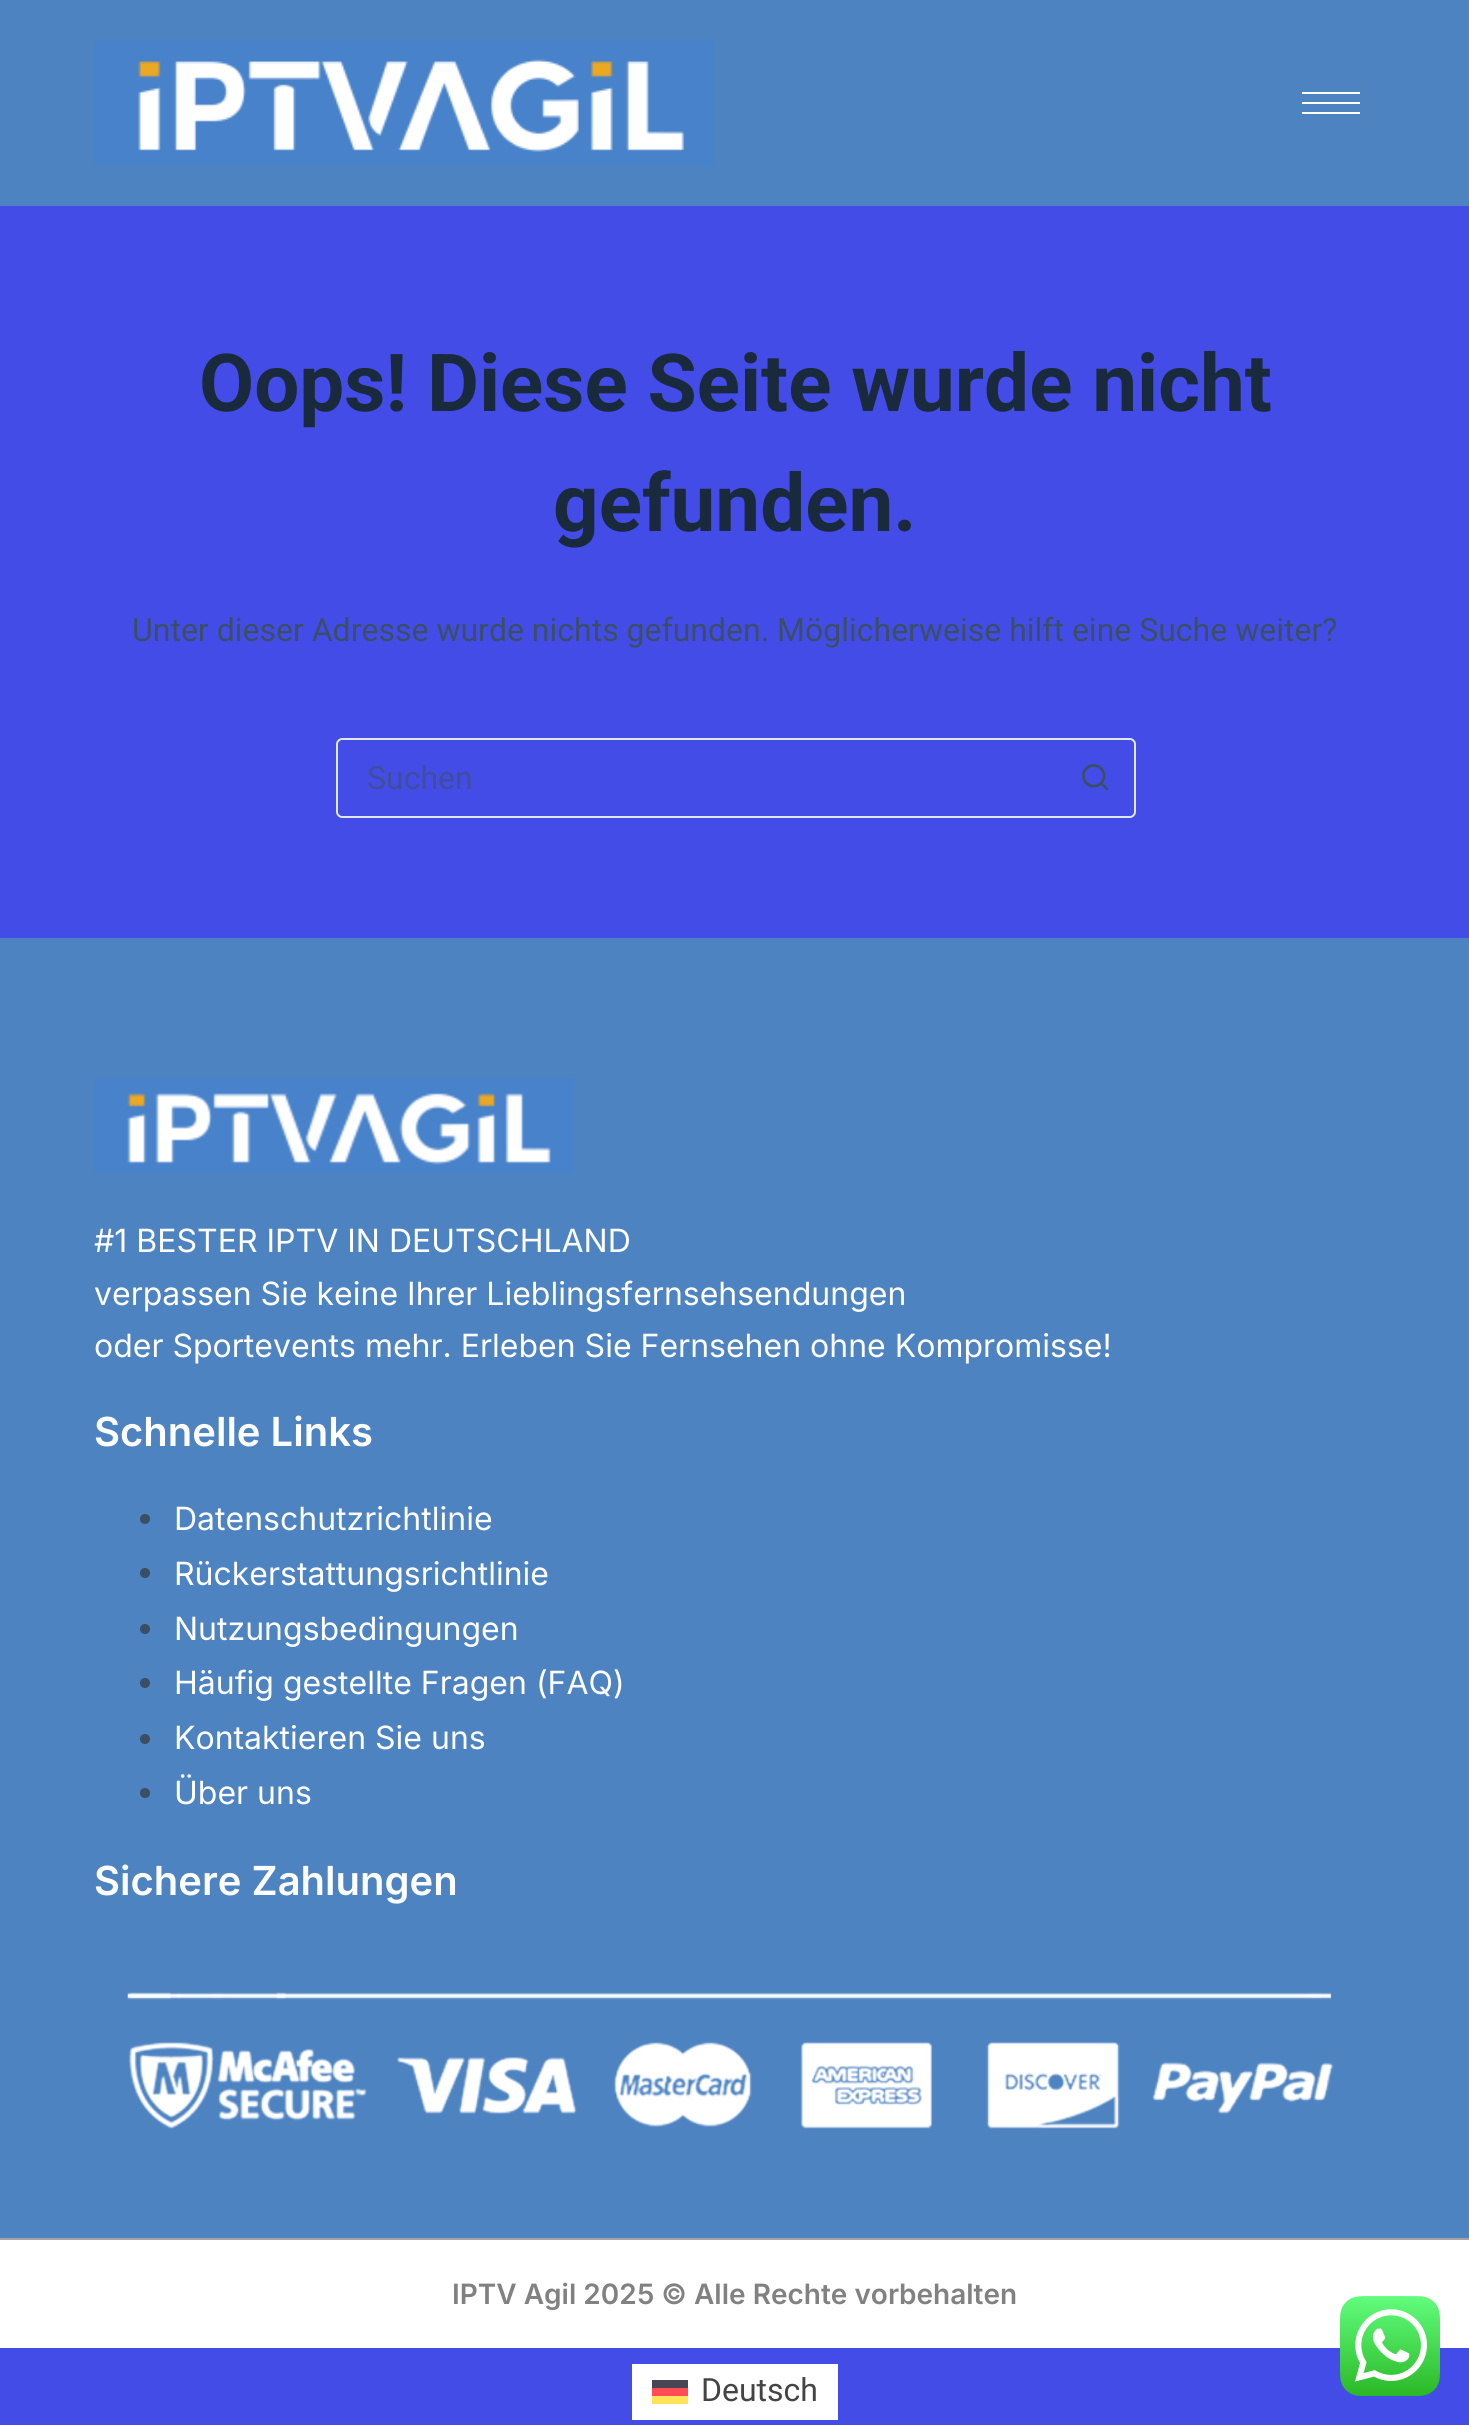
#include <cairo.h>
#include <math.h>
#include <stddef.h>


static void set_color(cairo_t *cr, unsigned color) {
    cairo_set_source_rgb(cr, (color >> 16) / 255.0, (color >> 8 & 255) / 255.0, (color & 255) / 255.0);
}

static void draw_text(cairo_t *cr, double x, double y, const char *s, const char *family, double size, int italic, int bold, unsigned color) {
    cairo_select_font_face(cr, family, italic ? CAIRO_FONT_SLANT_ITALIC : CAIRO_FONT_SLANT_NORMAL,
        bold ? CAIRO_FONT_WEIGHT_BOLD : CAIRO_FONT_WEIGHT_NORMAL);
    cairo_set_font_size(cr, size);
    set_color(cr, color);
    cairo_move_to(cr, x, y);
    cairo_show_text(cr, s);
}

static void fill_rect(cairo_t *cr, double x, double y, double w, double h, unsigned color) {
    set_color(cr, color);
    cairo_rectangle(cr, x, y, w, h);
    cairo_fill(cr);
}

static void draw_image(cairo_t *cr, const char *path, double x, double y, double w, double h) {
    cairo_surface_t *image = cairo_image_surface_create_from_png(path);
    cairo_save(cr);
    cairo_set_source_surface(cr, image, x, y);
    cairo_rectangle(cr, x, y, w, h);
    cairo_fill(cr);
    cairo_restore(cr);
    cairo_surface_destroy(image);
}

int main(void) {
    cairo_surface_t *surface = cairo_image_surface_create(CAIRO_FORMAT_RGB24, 1469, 2425);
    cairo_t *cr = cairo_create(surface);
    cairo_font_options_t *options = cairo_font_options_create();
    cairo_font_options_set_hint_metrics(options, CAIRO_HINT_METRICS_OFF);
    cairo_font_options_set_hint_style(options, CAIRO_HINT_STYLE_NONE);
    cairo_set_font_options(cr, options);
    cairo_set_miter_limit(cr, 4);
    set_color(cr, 0x444CE7);
    cairo_paint(cr);
    fill_rect(cr, 0, 0, 1469, 206, 0x4D83C1);
    draw_image(cr, "assets/img1.png", 94, 40, 620, 126);
    fill_rect(cr, 1302, 92, 58, 2, 0xFFFFFF);
    fill_rect(cr, 1302, 102, 58, 2, 0xFFFFFF);
    fill_rect(cr, 1302, 112, 58, 2, 0xFFFFFF);
    draw_text(cr, 199, 411, "Oops! Diese Seite wurde nicht", "Roboto", 80, 0, 1, 0x192A3D);
    draw_text(cr, 553, 531, "gefunden.", "Roboto", 80, 0, 1, 0x192A3D);
    draw_text(cr, 132, 641, "Unter dieser Adresse wurde nichts gefunden. Möglicherweise hilft eine Suche weiter?", "Roboto", 32, 0, 0, 0x3A4F66);
    set_color(cr, 0xE1E8ED);
    cairo_set_fill_rule(cr, CAIRO_FILL_RULE_EVEN_ODD);
    cairo_new_path(cr);
    cairo_move_to(cr, 342, 738);
    cairo_line_to(cr, 1056, 738);
    cairo_line_to(cr, 1056, 818);
    cairo_line_to(cr, 342, 818);
    cairo_curve_to(cr, 339, 818, 336, 815, 336, 812);
    cairo_line_to(cr, 336, 744);
    cairo_curve_to(cr, 336, 741, 339, 738, 342, 738);
    cairo_close_path(cr);
    cairo_move_to(cr, 342, 740);
    cairo_line_to(cr, 1056, 740);
    cairo_line_to(cr, 1056, 816);
    cairo_line_to(cr, 342, 816);
    cairo_curve_to(cr, 340, 816, 338, 814, 338, 812);
    cairo_line_to(cr, 338, 744);
    cairo_curve_to(cr, 338, 742, 340, 740, 342, 740);
    cairo_close_path(cr);
    cairo_fill(cr);
    draw_text(cr, 367, 789, "Suchen", "Roboto", 32, 0, 0, 0x3E4E9A);
    set_color(cr, 0xE1E8ED);
    cairo_new_path(cr);
    cairo_move_to(cr, 1056, 738);
    cairo_line_to(cr, 1130, 738);
    cairo_curve_to(cr, 1133, 738, 1136, 741, 1136, 744);
    cairo_line_to(cr, 1136, 812);
    cairo_curve_to(cr, 1136, 815, 1133, 818, 1130, 818);
    cairo_line_to(cr, 1056, 818);
    cairo_close_path(cr);
    cairo_move_to(cr, 1056, 740);
    cairo_line_to(cr, 1130, 740);
    cairo_curve_to(cr, 1132, 740, 1134, 742, 1134, 744);
    cairo_line_to(cr, 1134, 812);
    cairo_curve_to(cr, 1134, 814, 1132, 816, 1130, 816);
    cairo_line_to(cr, 1056, 816);
    cairo_close_path(cr);
    cairo_fill(cr);
    draw_image(cr, "assets/img2.png", 1082, 764, 26, 26);
    fill_rect(cr, 0, 938, 1469, 1300, 0x4D83C1);
    draw_image(cr, "assets/img3.png", 94, 1078, 480, 96);
    draw_text(cr, 94, 1252, "#1 BESTER IPTV IN DEUTSCHLAND", "Inter", 32, 0, 0, 0xFFFFFF);
    draw_text(cr, 94, 1305, "verpassen Sie keine Ihrer Lieblingsfernsehsendungen", "Inter", 32, 0, 0, 0xFFFFFF);
    draw_text(cr, 94, 1357, "oder Sportevents mehr. Erleben Sie Fernsehen ohne Kompromisse!", "Inter", 32, 0, 0, 0xFFFFFF);
    draw_text(cr, 94, 1446, "Schnelle Links", "Inter SemiBold", 40, 0, 0, 0xFFFFFF);
    set_color(cr, 0x3A4F66);
    cairo_new_path(cr);
    cairo_arc(cr, 145, 1519, 5, 0, 2 * M_PI);
    cairo_fill(cr);
    draw_text(cr, 174, 1530, "Datenschutzrichtlinie", "Inter", 32, 0, 0, 0xFFFFFF);
    set_color(cr, 0x3A4F66);
    cairo_new_path(cr);
    cairo_arc(cr, 145, 1573, 5, 0, 2 * M_PI);
    cairo_fill(cr);
    draw_text(cr, 174, 1585, "Rückerstattungsrichtlinie", "Inter", 32, 0, 0, 0xFFFFFF);
    set_color(cr, 0x3A4F66);
    cairo_new_path(cr);
    cairo_arc(cr, 145, 1629, 5, 0, 2 * M_PI);
    cairo_fill(cr);
    draw_text(cr, 174, 1640, "Nutzungsbedingungen", "Inter", 32, 0, 0, 0xFFFFFF);
    set_color(cr, 0x3A4F66);
    cairo_new_path(cr);
    cairo_arc(cr, 145, 1683, 5, 0, 2 * M_PI);
    cairo_fill(cr);
    draw_text(cr, 174, 1694, "Häufig gestellte Fragen (FAQ)", "Inter", 32, 0, 0, 0xFFFFFF);
    set_color(cr, 0x3A4F66);
    cairo_new_path(cr);
    cairo_arc(cr, 145, 1739, 5, 0, 2 * M_PI);
    cairo_fill(cr);
    draw_text(cr, 174, 1749, "Kontaktieren Sie uns", "Inter", 32, 0, 0, 0xFFFFFF);
    set_color(cr, 0x3A4F66);
    cairo_new_path(cr);
    cairo_arc(cr, 145, 1793, 5, 0, 2 * M_PI);
    cairo_fill(cr);
    draw_text(cr, 174, 1804, "Über uns", "Inter", 32, 0, 0, 0xFFFFFF);
    draw_text(cr, 94, 1895, "Sichere Zahlungen", "Inter SemiBold", 40, 0, 0, 0xFFFFFF);
    draw_image(cr, "assets/img4.png", 127, 1992, 1207, 137);
    fill_rect(cr, 0, 2240, 1469, 108, 0xFFFFFF);
    fill_rect(cr, 0, 2238, 1469, 2, 0xA3A3A3);
    draw_text(cr, 452, 2304, "IPTV Agil 2025 © Alle Rechte vorbehalten", "Inter SemiBold", 28, 0, 0, 0x818181);
    fill_rect(cr, 632, 2364, 206, 56, 0xFFFFFF);
    fill_rect(cr, 652, 2380, 36, 8, 0x464655);
    draw_text(cr, 701, 2401, "Deutsch", "Roboto", 32, 0, 0, 0x444444);
    fill_rect(cr, 652, 2388, 36, 8, 0xFF4B55);
    fill_rect(cr, 652, 2396, 36, 8, 0xFFE15A);
    draw_image(cr, "assets/img5.png", 1340, 2296, 100, 100);
    cairo_surface_write_to_png(surface, "output.png");
    cairo_font_options_destroy(options);
    cairo_destroy(cr);
    cairo_surface_destroy(surface);
    return 0;
}
